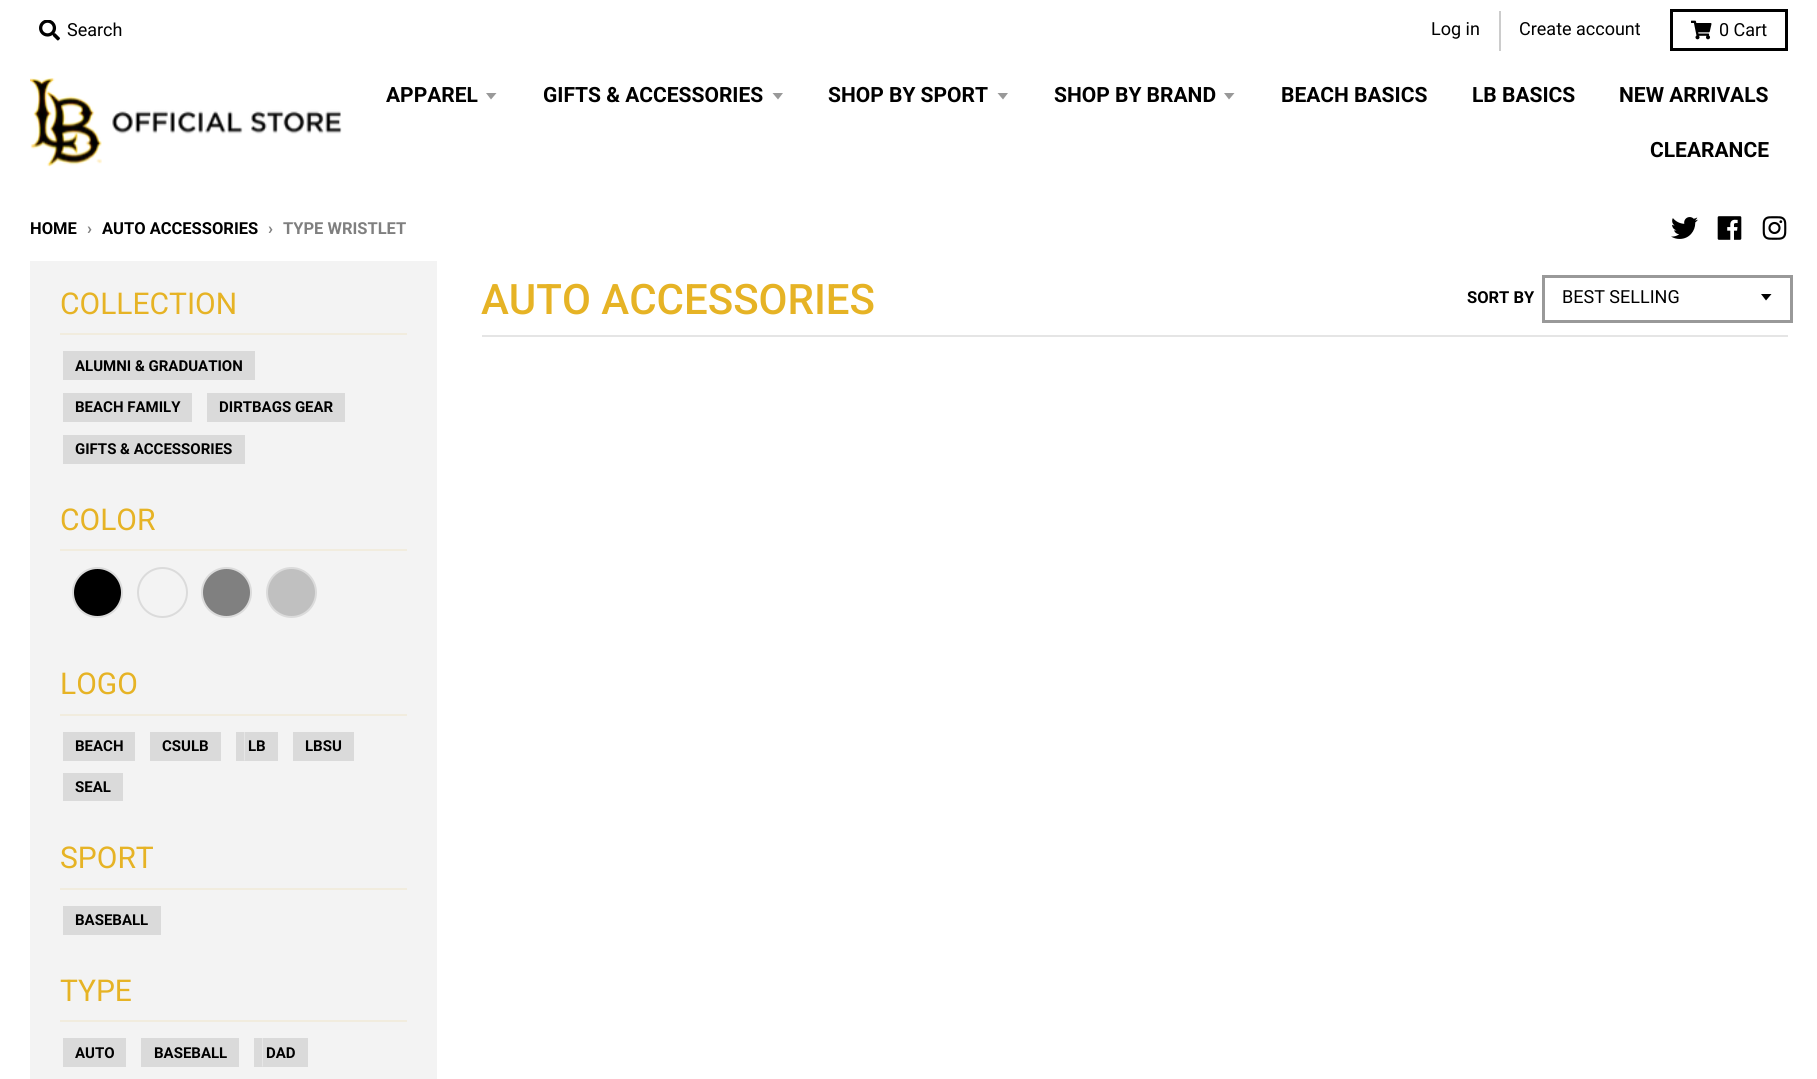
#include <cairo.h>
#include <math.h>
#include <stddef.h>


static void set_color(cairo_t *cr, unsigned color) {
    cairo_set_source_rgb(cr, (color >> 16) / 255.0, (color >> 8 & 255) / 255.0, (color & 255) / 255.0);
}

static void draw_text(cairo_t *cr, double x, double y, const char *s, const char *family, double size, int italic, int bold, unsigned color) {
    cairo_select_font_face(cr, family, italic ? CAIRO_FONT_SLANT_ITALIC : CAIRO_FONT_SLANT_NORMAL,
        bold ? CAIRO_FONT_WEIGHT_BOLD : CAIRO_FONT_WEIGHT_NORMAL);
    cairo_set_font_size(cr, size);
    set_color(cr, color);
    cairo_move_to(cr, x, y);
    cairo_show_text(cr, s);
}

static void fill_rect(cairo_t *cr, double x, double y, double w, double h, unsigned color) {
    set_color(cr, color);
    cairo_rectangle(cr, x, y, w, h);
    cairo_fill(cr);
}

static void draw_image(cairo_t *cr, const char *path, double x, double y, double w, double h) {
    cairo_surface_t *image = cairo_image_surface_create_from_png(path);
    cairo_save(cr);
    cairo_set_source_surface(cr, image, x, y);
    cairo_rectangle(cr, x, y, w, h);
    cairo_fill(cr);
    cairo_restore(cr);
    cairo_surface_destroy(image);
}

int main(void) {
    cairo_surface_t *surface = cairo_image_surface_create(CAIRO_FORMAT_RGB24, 1817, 1079);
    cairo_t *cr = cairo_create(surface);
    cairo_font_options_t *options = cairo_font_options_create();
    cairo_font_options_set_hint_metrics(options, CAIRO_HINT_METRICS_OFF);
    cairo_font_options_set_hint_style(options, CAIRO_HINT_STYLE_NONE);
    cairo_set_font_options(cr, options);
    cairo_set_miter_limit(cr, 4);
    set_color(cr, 0xFFFFFF);
    cairo_paint(cr);
    draw_image(cr, "assets/img1.png", 39, 20, 21, 21);
    draw_text(cr, 67, 36, "Search", "Roboto", 18, 0, 0, 0x000000);
    fill_rect(cr, 1499, 11, 2, 40, 0xCCCCCC);
    draw_text(cr, 1431, 35, "Log in", "Roboto", 18, 0, 0, 0x000000);
    draw_text(cr, 1519, 35, "Create account", "Roboto", 18, 0, 0, 0x000000);
    cairo_rectangle(cr, 1671.5, 10.5, 115, 39);
    cairo_set_line_width(cr, 3);
    cairo_stroke(cr);
    draw_image(cr, "assets/img2.png", 1691, 20, 21, 20);
    draw_text(cr, 1719, 36, "0 Cart", "Roboto", 18, 0, 0, 0x000000);
    draw_image(cr, "assets/img3.png", 30, 78, 312, 89);
    draw_text(cr, 386, 102, "APPAREL", "Roboto", 21, 0, 1, 0x000000);
    set_color(cr, 0x999999);
    cairo_new_path(cr);
    cairo_move_to(cr, 486, 93);
    cairo_line_to(cr, 491, 99.5);
    cairo_line_to(cr, 496.5, 93);
    cairo_close_path(cr);
    cairo_fill(cr);
    draw_text(cr, 543, 102, "GIFTS & ACCESSORIES", "Roboto", 21, 0, 1, 0x000000);
    set_color(cr, 0x999999);
    cairo_new_path(cr);
    cairo_move_to(cr, 772.5, 93);
    cairo_line_to(cr, 778, 99.5);
    cairo_line_to(cr, 783, 93);
    cairo_close_path(cr);
    cairo_fill(cr);
    draw_text(cr, 828, 102, "SHOP BY SPORT", "Roboto", 21, 0, 1, 0x000000);
    set_color(cr, 0x999999);
    cairo_new_path(cr);
    cairo_move_to(cr, 997.5, 93);
    cairo_line_to(cr, 1003, 99.5);
    cairo_line_to(cr, 1008, 93);
    cairo_close_path(cr);
    cairo_fill(cr);
    draw_text(cr, 1054, 102, "SHOP BY BRAND", "Roboto", 21, 0, 1, 0x000000);
    set_color(cr, 0x999999);
    cairo_new_path(cr);
    cairo_move_to(cr, 1224, 93);
    cairo_line_to(cr, 1229, 99.5);
    cairo_line_to(cr, 1234.5, 93);
    cairo_close_path(cr);
    cairo_fill(cr);
    draw_text(cr, 1281, 102, "BEACH BASICS", "Roboto", 21, 0, 1, 0x000000);
    draw_text(cr, 1472, 102, "LB BASICS", "Roboto", 21, 0, 1, 0x000000);
    draw_text(cr, 1619, 102, "NEW ARRIVALS", "Roboto", 21, 0, 1, 0x000000);
    draw_text(cr, 1650, 157, "CLEARANCE", "Roboto", 21, 0, 1, 0x000000);
    draw_text(cr, 30, 234, "HOME", "Roboto", 16.5, 0, 1, 0x000000);
    draw_text(cr, 87, 234, "›", "Roboto", 16.5, 0, 1, 0x7F7F7F);
    draw_text(cr, 102, 234, "AUTO ACCESSORIES", "Roboto", 16.5, 0, 1, 0x000000);
    draw_text(cr, 268, 234, "›", "Roboto", 16.5, 0, 1, 0x7F7F7F);
    draw_text(cr, 283, 234, "TYPE WRISTLET", "Roboto", 16.5, 0, 1, 0x7F7F7F);
    draw_image(cr, "assets/img4.png", 1671, 217, 27, 22);
    draw_image(cr, "assets/img5.png", 1717, 216, 25, 24);
    draw_image(cr, "assets/img6.png", 1762, 216, 25, 24);
    fill_rect(cr, 30, 261, 407, 818, 0xF3F3F3);
    fill_rect(cr, 60, 333, 347, 2, 0xF1ECDE);
    draw_text(cr, 60, 314, "COLLECTION", "Roboto", 30, 0, 0, 0xE6B325);
    fill_rect(cr, 72, 351, 174, 29, 0xDADADA);
    draw_text(cr, 75, 371, "ALUMNI & GRADUATION", "Roboto", 15, 0, 1, 0x000000);
    set_color(cr, 0xDADADA);
    cairo_new_path(cr);
    cairo_move_to(cr, 63, 351);
    cairo_line_to(cr, 63, 380);
    cairo_line_to(cr, 237, 380);
    cairo_line_to(cr, 72, 380);
    cairo_line_to(cr, 72, 351);
    cairo_close_path(cr);
    cairo_fill(cr);
    cairo_new_path(cr);
    cairo_move_to(cr, 81, 380);
    cairo_line_to(cr, 255, 380);
    cairo_line_to(cr, 255, 351);
    cairo_line_to(cr, 246, 351);
    cairo_line_to(cr, 246, 380);
    cairo_close_path(cr);
    cairo_fill(cr);
    fill_rect(cr, 72, 393, 111, 29, 0xDADADA);
    draw_text(cr, 75, 412, "BEACH FAMILY", "Roboto", 15, 0, 1, 0x000000);
    set_color(cr, 0xDADADA);
    cairo_new_path(cr);
    cairo_move_to(cr, 63, 393);
    cairo_line_to(cr, 63, 422);
    cairo_line_to(cr, 174, 422);
    cairo_line_to(cr, 72, 422);
    cairo_line_to(cr, 72, 393);
    cairo_close_path(cr);
    cairo_fill(cr);
    cairo_new_path(cr);
    cairo_move_to(cr, 81, 422);
    cairo_line_to(cr, 192, 422);
    cairo_line_to(cr, 192, 393);
    cairo_line_to(cr, 183, 393);
    cairo_line_to(cr, 183, 422);
    cairo_close_path(cr);
    cairo_fill(cr);
    fill_rect(cr, 216, 393, 120, 29, 0xDADADA);
    draw_text(cr, 219, 412, "DIRTBAGS GEAR", "Roboto", 15, 0, 1, 0x000000);
    set_color(cr, 0xDADADA);
    cairo_new_path(cr);
    cairo_move_to(cr, 207, 393);
    cairo_line_to(cr, 207, 422);
    cairo_line_to(cr, 327, 422);
    cairo_line_to(cr, 216, 422);
    cairo_line_to(cr, 216, 393);
    cairo_close_path(cr);
    cairo_fill(cr);
    cairo_new_path(cr);
    cairo_move_to(cr, 225, 422);
    cairo_line_to(cr, 345, 422);
    cairo_line_to(cr, 345, 393);
    cairo_line_to(cr, 336, 393);
    cairo_line_to(cr, 336, 422);
    cairo_close_path(cr);
    cairo_fill(cr);
    fill_rect(cr, 72, 435, 164, 29, 0xDADADA);
    draw_text(cr, 75, 454, "GIFTS & ACCESSORIES", "Roboto", 15, 0, 1, 0x000000);
    set_color(cr, 0xDADADA);
    cairo_new_path(cr);
    cairo_move_to(cr, 63, 435);
    cairo_line_to(cr, 63, 464);
    cairo_line_to(cr, 227, 464);
    cairo_line_to(cr, 72, 464);
    cairo_line_to(cr, 72, 435);
    cairo_close_path(cr);
    cairo_fill(cr);
    cairo_new_path(cr);
    cairo_move_to(cr, 81, 464);
    cairo_line_to(cr, 245, 464);
    cairo_line_to(cr, 245, 435);
    cairo_line_to(cr, 236, 435);
    cairo_line_to(cr, 236, 464);
    cairo_close_path(cr);
    cairo_fill(cr);
    fill_rect(cr, 60, 549, 347, 2, 0xF1ECDE);
    draw_text(cr, 60, 530, "COLOR", "Roboto", 30, 0, 0, 0xE6B325);
    set_color(cr, 0x000000);
    cairo_new_path(cr);
    cairo_arc(cr, 97.5, 592.5, 24.5, 0, 2 * M_PI);
    cairo_fill_preserve(cr);
    set_color(cr, 0xDBDBDB);
    cairo_set_line_width(cr, 2);
    cairo_stroke(cr);
    cairo_arc(cr, 162.5, 592.5, 24.5, 0, 2 * M_PI);
    cairo_stroke(cr);
    set_color(cr, 0x808080);
    cairo_arc(cr, 226.5, 592.5, 24.5, 0, 2 * M_PI);
    cairo_fill_preserve(cr);
    set_color(cr, 0xDBDBDB);
    cairo_stroke(cr);
    set_color(cr, 0xC0C0C0);
    cairo_arc(cr, 291.5, 592.5, 24.5, 0, 2 * M_PI);
    cairo_fill_preserve(cr);
    set_color(cr, 0xDBDBDB);
    cairo_stroke(cr);
    fill_rect(cr, 60, 714, 347, 2, 0xF1ECDE);
    draw_text(cr, 60, 694, "LOGO", "Roboto", 30, 0, 0, 0xE6B325);
    set_color(cr, 0xDADADA);
    cairo_new_path(cr);
    cairo_move_to(cr, 63, 732);
    cairo_line_to(cr, 63, 761);
    cairo_line_to(cr, 117, 761);
    cairo_line_to(cr, 117, 760);
    cairo_line_to(cr, 72, 760);
    cairo_line_to(cr, 72, 732);
    cairo_close_path(cr);
    cairo_fill(cr);
    cairo_new_path(cr);
    cairo_move_to(cr, 81, 760);
    cairo_line_to(cr, 81, 761);
    cairo_line_to(cr, 135, 761);
    cairo_line_to(cr, 135, 732);
    cairo_line_to(cr, 126, 732);
    cairo_line_to(cr, 126, 760);
    cairo_close_path(cr);
    cairo_fill(cr);
    fill_rect(cr, 72, 732, 54, 28, 0xDADADA);
    draw_text(cr, 75, 751, "BEACH", "Roboto", 15, 0, 1, 0x000000);
    set_color(cr, 0xDADADA);
    cairo_new_path(cr);
    cairo_move_to(cr, 150, 732);
    cairo_line_to(cr, 150, 761);
    cairo_line_to(cr, 203, 761);
    cairo_line_to(cr, 203, 760);
    cairo_line_to(cr, 159, 760);
    cairo_line_to(cr, 159, 732);
    cairo_close_path(cr);
    cairo_fill(cr);
    cairo_new_path(cr);
    cairo_move_to(cr, 168, 760);
    cairo_line_to(cr, 168, 761);
    cairo_line_to(cr, 221, 761);
    cairo_line_to(cr, 221, 732);
    cairo_line_to(cr, 212, 732);
    cairo_line_to(cr, 212, 760);
    cairo_close_path(cr);
    cairo_fill(cr);
    fill_rect(cr, 159, 732, 53, 28, 0xDADADA);
    draw_text(cr, 162, 751, "CSULB", "Roboto", 15, 0, 1, 0x000000);
    set_color(cr, 0xDADADA);
    cairo_new_path(cr);
    cairo_move_to(cr, 236, 732);
    cairo_line_to(cr, 236, 761);
    cairo_line_to(cr, 260, 761);
    cairo_line_to(cr, 260, 760.5);
    cairo_line_to(cr, 244.5, 760.5);
    cairo_line_to(cr, 244.5, 732);
    cairo_close_path(cr);
    cairo_fill(cr);
    cairo_new_path(cr);
    cairo_move_to(cr, 254, 760.5);
    cairo_line_to(cr, 254, 761);
    cairo_line_to(cr, 278, 761);
    cairo_line_to(cr, 278, 732);
    cairo_line_to(cr, 268.5, 732);
    cairo_line_to(cr, 268.5, 760.5);
    cairo_close_path(cr);
    cairo_fill(cr);
    fill_rect(cr, 245, 732, 24, 29, 0xDADADA);
    draw_text(cr, 248, 751, "LB", "Roboto", 15, 0, 1, 0x000000);
    set_color(cr, 0xDADADA);
    cairo_new_path(cr);
    cairo_move_to(cr, 293, 732);
    cairo_line_to(cr, 293, 761);
    cairo_line_to(cr, 336, 761);
    cairo_line_to(cr, 336, 760);
    cairo_line_to(cr, 302, 760);
    cairo_line_to(cr, 302, 732);
    cairo_close_path(cr);
    cairo_fill(cr);
    cairo_new_path(cr);
    cairo_move_to(cr, 311, 760);
    cairo_line_to(cr, 311, 761);
    cairo_line_to(cr, 354, 761);
    cairo_line_to(cr, 354, 732);
    cairo_line_to(cr, 345, 732);
    cairo_line_to(cr, 345, 760);
    cairo_close_path(cr);
    cairo_fill(cr);
    fill_rect(cr, 302, 732, 43, 28, 0xDADADA);
    draw_text(cr, 305, 751, "LBSU", "Roboto", 15, 0, 1, 0x000000);
    fill_rect(cr, 72, 773, 51, 28, 0xDADADA);
    draw_text(cr, 75, 792, "SEAL", "Roboto", 15, 0, 1, 0x000000);
    fill_rect(cr, 63, 773, 9, 28, 0xDADADA);
    fill_rect(cr, 60, 888, 347, 2, 0xF1ECDE);
    draw_text(cr, 60, 868, "SPORT", "Roboto", 30, 0, 0, 0xE6B325);
    set_color(cr, 0xDADADA);
    cairo_new_path(cr);
    cairo_move_to(cr, 63, 906);
    cairo_line_to(cr, 63, 935);
    cairo_line_to(cr, 143, 935);
    cairo_line_to(cr, 143, 934);
    cairo_line_to(cr, 72, 934);
    cairo_line_to(cr, 72, 906);
    cairo_close_path(cr);
    cairo_fill(cr);
    cairo_new_path(cr);
    cairo_move_to(cr, 81, 934);
    cairo_line_to(cr, 81, 935);
    cairo_line_to(cr, 161, 935);
    cairo_line_to(cr, 161, 906);
    cairo_line_to(cr, 152, 906);
    cairo_line_to(cr, 152, 934);
    cairo_close_path(cr);
    cairo_fill(cr);
    fill_rect(cr, 72, 906, 80, 28, 0xDADADA);
    draw_text(cr, 75, 925, "BASEBALL", "Roboto", 15, 0, 1, 0x000000);
    fill_rect(cr, 60, 1020, 347, 2, 0xF1ECDE);
    draw_text(cr, 60, 1001, "TYPE", "Roboto", 30, 0, 0, 0xE6B325);
    set_color(cr, 0xDADADA);
    cairo_new_path(cr);
    cairo_move_to(cr, 63, 1038);
    cairo_line_to(cr, 63, 1067);
    cairo_line_to(cr, 108, 1067);
    cairo_line_to(cr, 108, 1066);
    cairo_line_to(cr, 72, 1066);
    cairo_line_to(cr, 72, 1038);
    cairo_close_path(cr);
    cairo_fill(cr);
    cairo_new_path(cr);
    cairo_move_to(cr, 81, 1066);
    cairo_line_to(cr, 81, 1067);
    cairo_line_to(cr, 126, 1067);
    cairo_line_to(cr, 126, 1038);
    cairo_line_to(cr, 117, 1038);
    cairo_line_to(cr, 117, 1066);
    cairo_close_path(cr);
    cairo_fill(cr);
    fill_rect(cr, 72, 1038, 45, 28, 0xDADADA);
    draw_text(cr, 75, 1058, "AUTO", "Roboto", 15, 0, 1, 0x000000);
    set_color(cr, 0xDADADA);
    cairo_new_path(cr);
    cairo_move_to(cr, 141, 1038);
    cairo_line_to(cr, 141, 1067);
    cairo_line_to(cr, 221, 1067);
    cairo_line_to(cr, 221, 1066);
    cairo_line_to(cr, 150, 1066);
    cairo_line_to(cr, 150, 1038);
    cairo_close_path(cr);
    cairo_fill(cr);
    cairo_new_path(cr);
    cairo_move_to(cr, 159, 1066);
    cairo_line_to(cr, 159, 1067);
    cairo_line_to(cr, 239, 1067);
    cairo_line_to(cr, 239, 1038);
    cairo_line_to(cr, 230, 1038);
    cairo_line_to(cr, 230, 1066);
    cairo_close_path(cr);
    cairo_fill(cr);
    fill_rect(cr, 150, 1038, 80, 28, 0xDADADA);
    draw_text(cr, 154, 1058, "BASEBALL", "Roboto", 15, 0, 1, 0x000000);
    set_color(cr, 0xDADADA);
    cairo_new_path(cr);
    cairo_move_to(cr, 254, 1038);
    cairo_line_to(cr, 254, 1067);
    cairo_line_to(cr, 290, 1067);
    cairo_line_to(cr, 290, 1066.5);
    cairo_line_to(cr, 262.5, 1066.5);
    cairo_line_to(cr, 262.5, 1038);
    cairo_close_path(cr);
    cairo_fill(cr);
    cairo_new_path(cr);
    cairo_move_to(cr, 272, 1066.5);
    cairo_line_to(cr, 272, 1067);
    cairo_line_to(cr, 308, 1067);
    cairo_line_to(cr, 308, 1038);
    cairo_line_to(cr, 298.5, 1038);
    cairo_line_to(cr, 298.5, 1066.5);
    cairo_close_path(cr);
    cairo_fill(cr);
    fill_rect(cr, 263, 1038, 36, 29, 0xDADADA);
    draw_text(cr, 266, 1058, "DAD", "Roboto", 15, 0, 1, 0x000000);
    fill_rect(cr, 482, 335, 1306, 2, 0xE5E5E5);
    draw_text(cr, 481, 314, "AUTO ACCESSORIES", "Roboto Medium", 42, 0, 0, 0xE6B325);
    draw_text(cr, 1467, 303, "SORT BY", "Roboto", 16.5, 0, 1, 0x000000);
    cairo_new_path(cr);
    cairo_move_to(cr, 1761, 294);
    cairo_line_to(cr, 1766, 300.5);
    cairo_line_to(cr, 1771.5, 294);
    cairo_close_path(cr);
    cairo_fill(cr);
    cairo_rectangle(cr, 1543.5, 276.5, 248, 45);
    set_color(cr, 0x999999);
    cairo_set_line_width(cr, 3);
    cairo_stroke(cr);
    draw_text(cr, 1562, 303, "BEST SELLING", "Roboto", 18, 0, 0, 0x000000);
    cairo_surface_write_to_png(surface, "output.png");
    cairo_font_options_destroy(options);
    cairo_destroy(cr);
    cairo_surface_destroy(surface);
    return 0;
}
